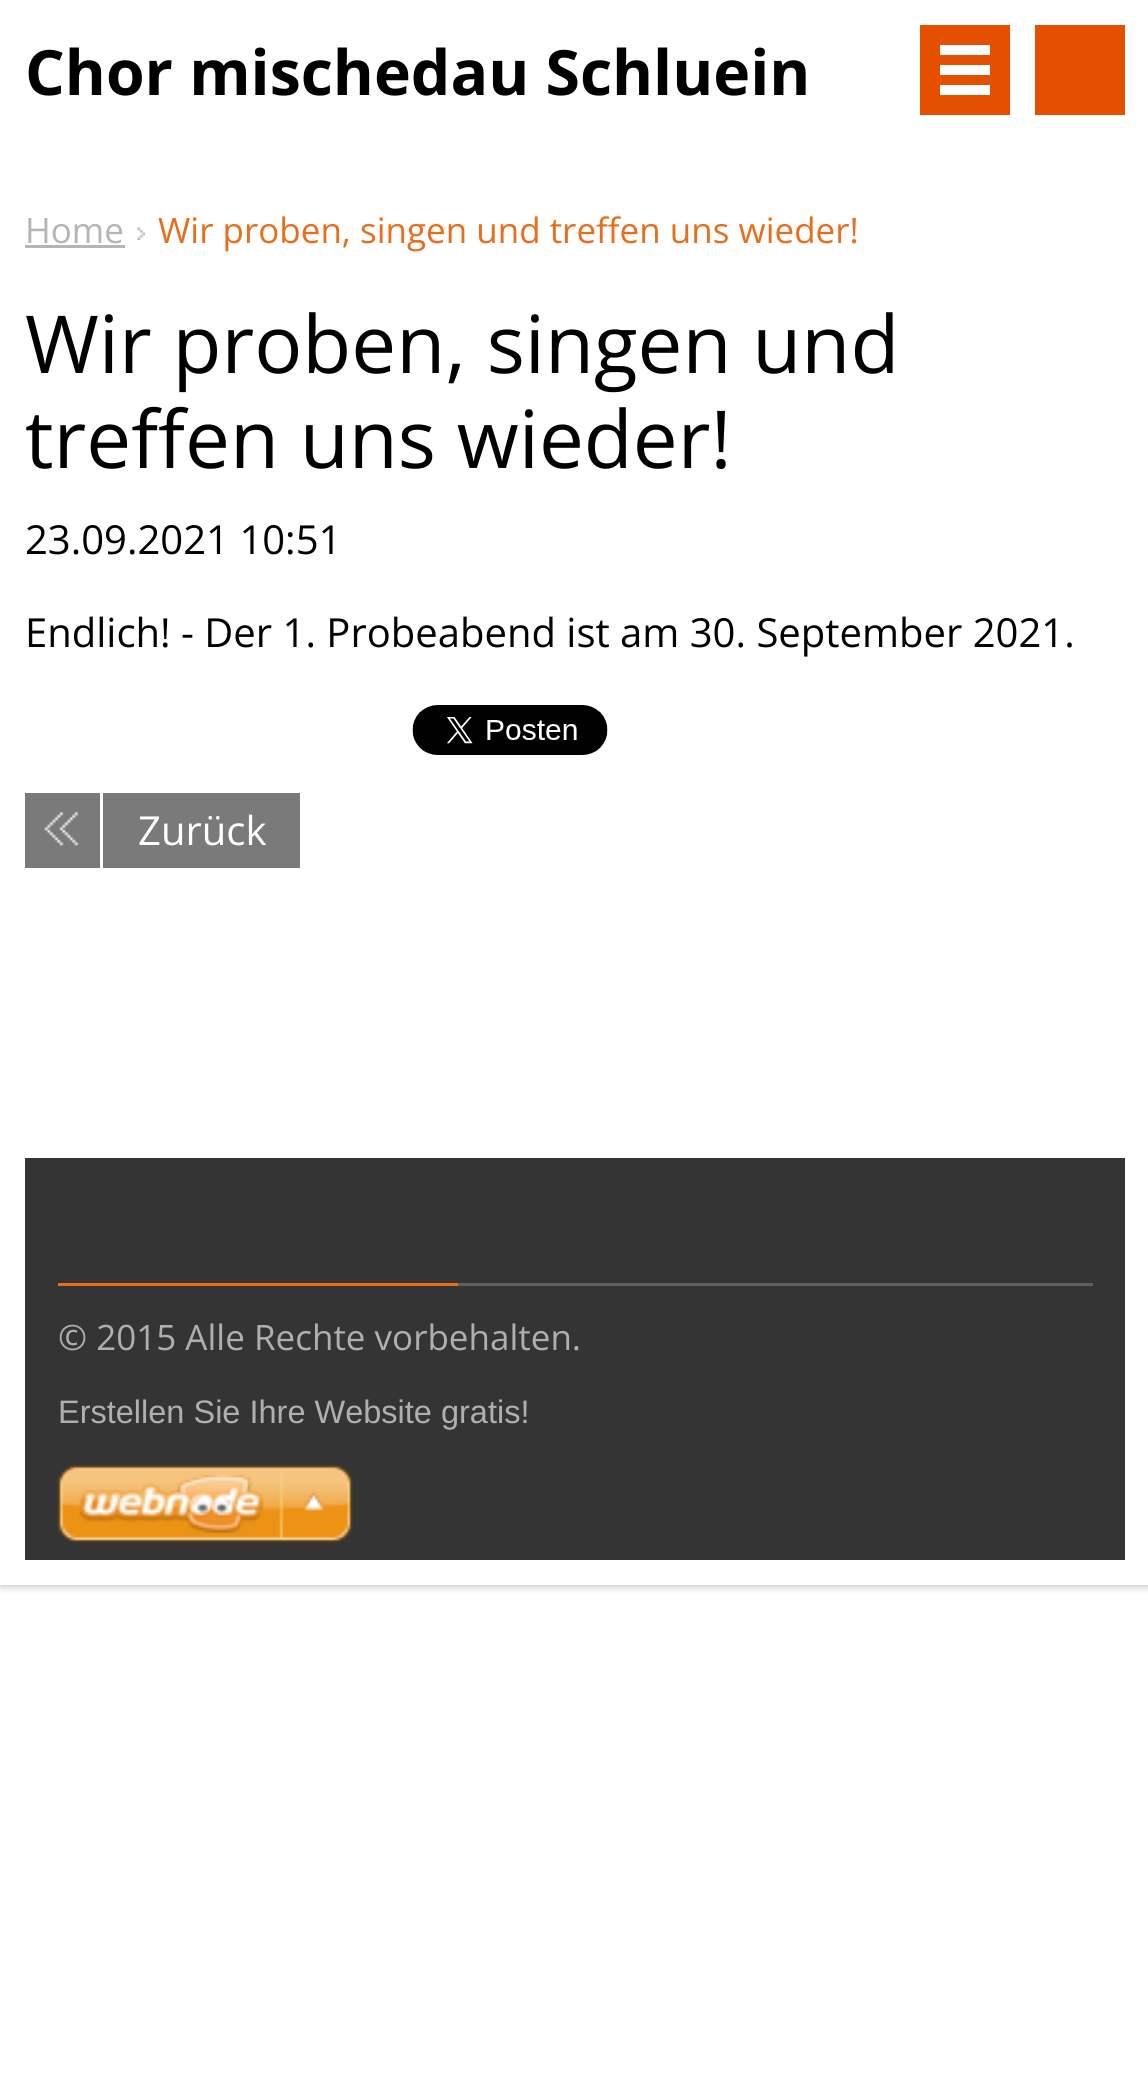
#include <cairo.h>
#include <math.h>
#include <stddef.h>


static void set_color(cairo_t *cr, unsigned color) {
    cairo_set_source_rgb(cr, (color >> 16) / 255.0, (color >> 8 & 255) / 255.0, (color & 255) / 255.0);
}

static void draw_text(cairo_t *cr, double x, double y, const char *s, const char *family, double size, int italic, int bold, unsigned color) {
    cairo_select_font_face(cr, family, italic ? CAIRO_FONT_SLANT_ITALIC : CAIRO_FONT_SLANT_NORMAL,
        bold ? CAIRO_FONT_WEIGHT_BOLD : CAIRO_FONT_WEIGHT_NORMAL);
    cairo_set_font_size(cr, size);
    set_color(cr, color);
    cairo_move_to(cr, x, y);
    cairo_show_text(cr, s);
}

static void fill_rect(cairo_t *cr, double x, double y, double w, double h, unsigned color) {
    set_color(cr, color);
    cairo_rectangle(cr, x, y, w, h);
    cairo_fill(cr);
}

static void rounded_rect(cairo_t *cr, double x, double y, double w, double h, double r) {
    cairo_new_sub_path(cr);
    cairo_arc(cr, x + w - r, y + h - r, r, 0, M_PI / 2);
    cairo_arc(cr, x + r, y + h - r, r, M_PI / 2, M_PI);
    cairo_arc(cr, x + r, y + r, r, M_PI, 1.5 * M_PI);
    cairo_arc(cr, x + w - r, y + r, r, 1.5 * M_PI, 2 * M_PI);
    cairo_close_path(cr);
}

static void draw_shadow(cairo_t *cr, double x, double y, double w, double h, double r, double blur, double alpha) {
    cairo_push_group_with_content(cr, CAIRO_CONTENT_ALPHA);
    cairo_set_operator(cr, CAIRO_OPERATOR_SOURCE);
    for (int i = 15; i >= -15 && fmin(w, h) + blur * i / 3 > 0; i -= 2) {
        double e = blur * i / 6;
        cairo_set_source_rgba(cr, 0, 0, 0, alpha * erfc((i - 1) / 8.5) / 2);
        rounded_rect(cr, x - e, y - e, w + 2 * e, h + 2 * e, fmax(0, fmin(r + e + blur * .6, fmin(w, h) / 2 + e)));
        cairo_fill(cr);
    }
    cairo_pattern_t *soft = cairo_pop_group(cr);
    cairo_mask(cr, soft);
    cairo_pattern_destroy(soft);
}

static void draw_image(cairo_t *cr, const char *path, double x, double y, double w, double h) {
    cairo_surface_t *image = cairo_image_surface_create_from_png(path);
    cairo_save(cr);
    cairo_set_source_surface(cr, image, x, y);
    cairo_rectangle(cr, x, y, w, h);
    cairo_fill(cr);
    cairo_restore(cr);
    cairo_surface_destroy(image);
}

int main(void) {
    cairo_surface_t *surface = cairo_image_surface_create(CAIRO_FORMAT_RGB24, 1148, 2088);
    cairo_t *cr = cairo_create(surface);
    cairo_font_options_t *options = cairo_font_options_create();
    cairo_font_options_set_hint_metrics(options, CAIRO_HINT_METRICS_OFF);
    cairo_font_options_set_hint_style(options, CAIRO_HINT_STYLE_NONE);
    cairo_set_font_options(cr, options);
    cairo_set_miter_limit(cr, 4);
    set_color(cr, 0xFFFFFF);
    cairo_paint(cr);
    cairo_save(cr);
    cairo_rectangle(cr, 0, 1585, 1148, 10);
    cairo_clip(cr);
    set_color(cr, 0x989898);
    draw_shadow(cr, 0, 0, 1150, 1585, 0, 5, 0.75);
    cairo_restore(cr);
    draw_text(cr, 25, 95, "Chor mischedau Schluein", "Open Sans", 62.5, 0, 1, 0x000000);
    fill_rect(cr, 920, 25, 90, 90, 0xE44F00);
    fill_rect(cr, 940, 45, 50, 10, 0xFFFFFF);
    fill_rect(cr, 940, 85, 50, 10, 0xFFFFFF);
    fill_rect(cr, 940, 65, 50, 10, 0xFFFFFF);
    fill_rect(cr, 1035, 25, 90, 90, 0xE44F00);
    draw_text(cr, 25, 243, "Home", "Open Sans", 35, 0, 0, 0xB5B5B5);
    fill_rect(cr, 25, 245, 100, 3, 0xB5B5B5);
    draw_image(cr, "assets/img1.png", 137, 227, 8, 13);
    draw_text(cr, 158, 243, "Wir proben, singen und treffen uns wieder!", "Open Sans", 35, 0, 0, 0xE96D1A);
    draw_text(cr, 25, 373, "Wir proben, singen und", "Open Sans", 80, 0, 0, 0x000000);
    draw_text(cr, 25, 468, "treffen uns wieder!", "Open Sans", 80, 0, 0, 0x000000);
    draw_text(cr, 25, 554, "23.09.2021 10:51", "Open Sans", 40, 0, 0, 0x000000);
    draw_text(cr, 25, 647, "Endlich! - Der 1. Probeabend ist am 30. September 2021.", "Open Sans", 40, 0, 0, 0x000000);
    draw_image(cr, "assets/img2.png", 412, 705, 196, 50);
    fill_rect(cr, 25, 793, 275, 75, 0x7A7A7A);
    draw_image(cr, "assets/img3.png", 44, 811, 35, 35);
    fill_rect(cr, 100, 793, 3, 75, 0xFFFFFF);
    draw_text(cr, 138, 845, "Zurück", "Open Sans", 40, 0, 0, 0xFFFFFF);
    fill_rect(cr, 25, 1158, 1100, 402, 0x343434);
    fill_rect(cr, 458, 1283, 635, 3, 0x5F5F5F);
    fill_rect(cr, 58, 1283, 400, 3, 0xE96D1A);
    draw_text(cr, 58, 1350, "© 2015 Alle Rechte vorbehalten.", "Open Sans", 35, 0, 0, 0xB0AFAF);
    draw_text(cr, 58, 1423, "Erstellen Sie Ihre Website gratis!", "Liberation Sans", 32.5, 0, 0, 0xB0AFAF);
    draw_image(cr, "assets/img4.png", 57, 1465, 296, 78);
    cairo_surface_write_to_png(surface, "output.png");
    cairo_font_options_destroy(options);
    cairo_destroy(cr);
    cairo_surface_destroy(surface);
    return 0;
}
